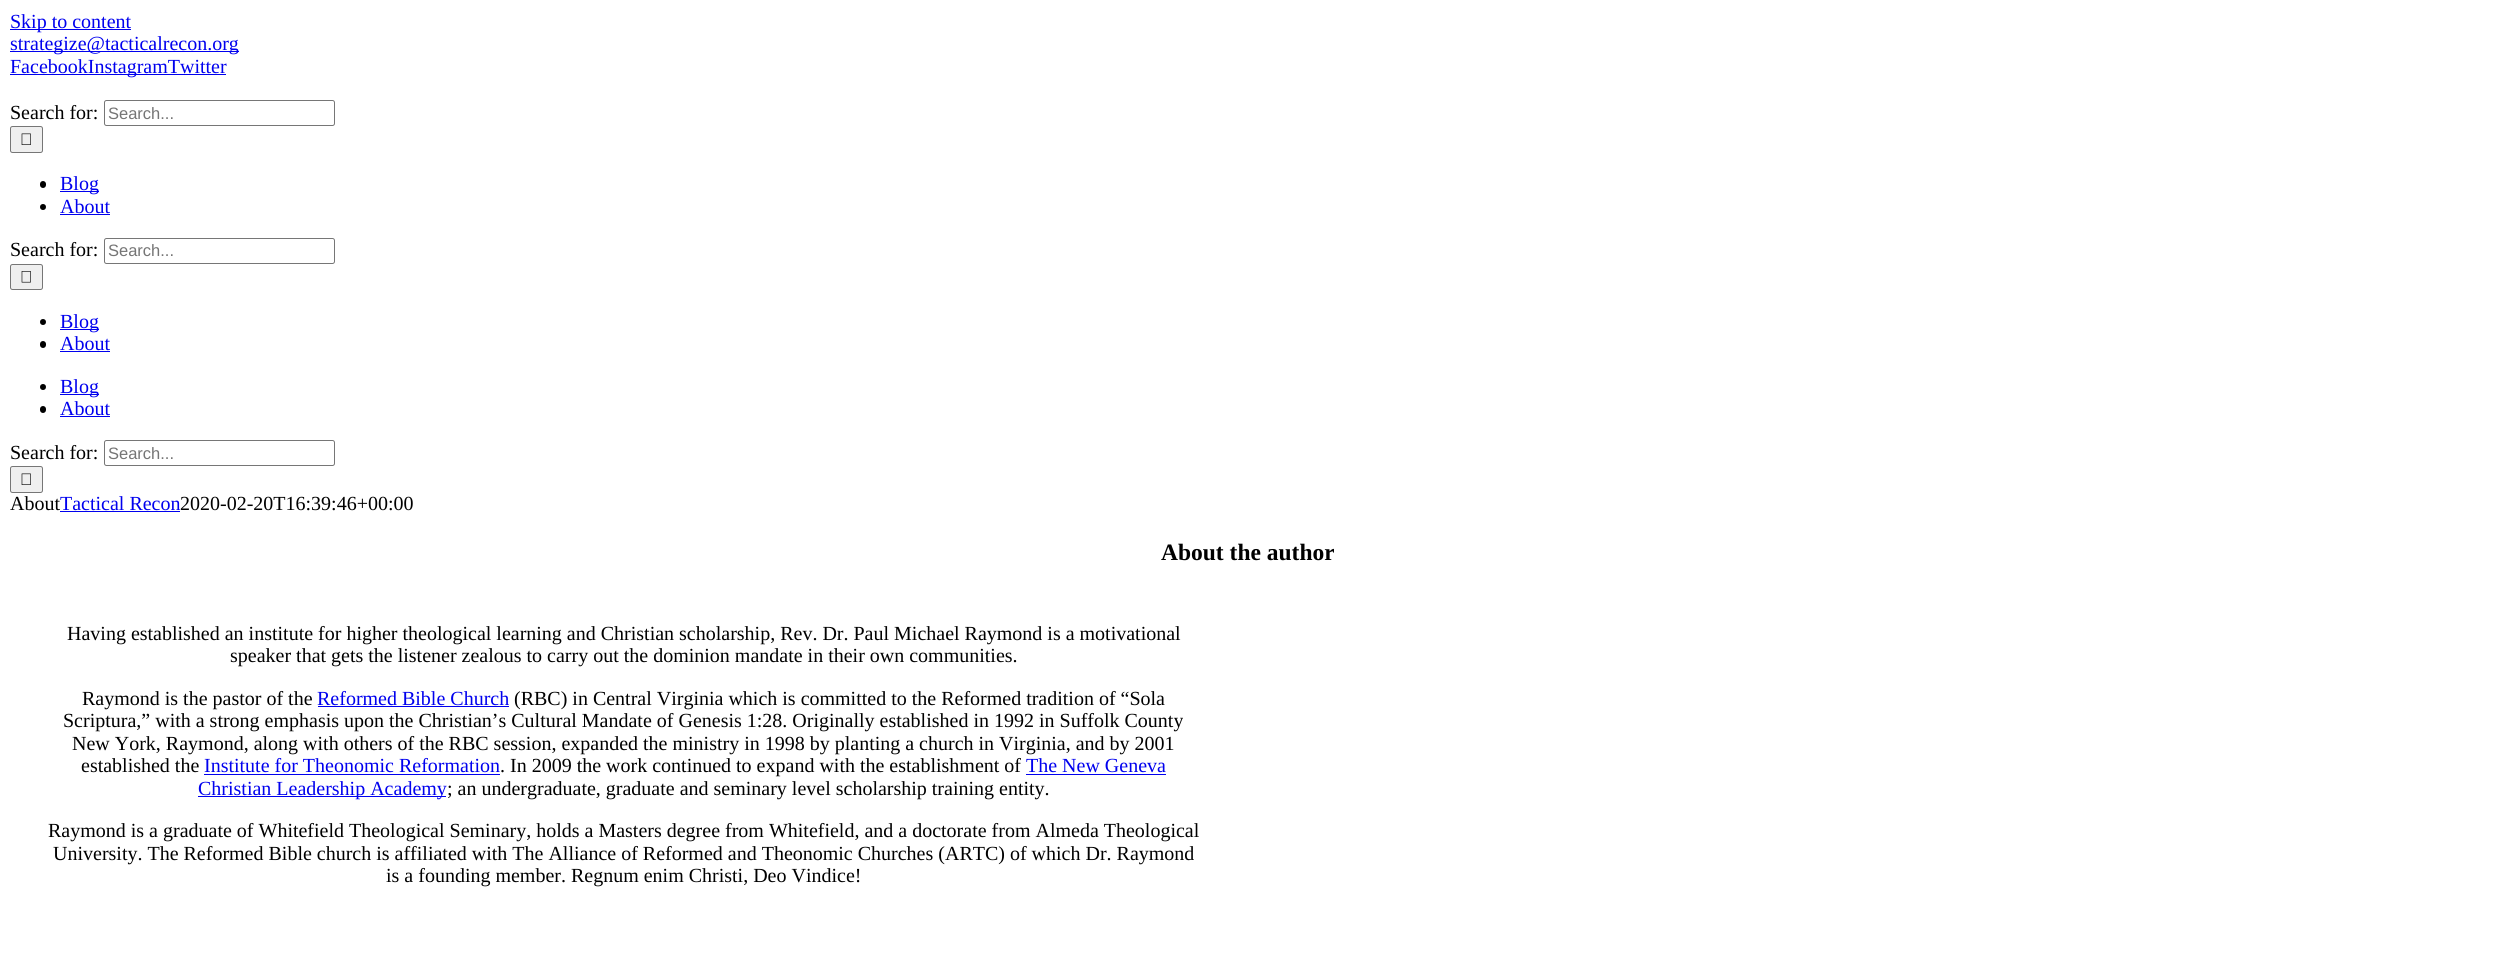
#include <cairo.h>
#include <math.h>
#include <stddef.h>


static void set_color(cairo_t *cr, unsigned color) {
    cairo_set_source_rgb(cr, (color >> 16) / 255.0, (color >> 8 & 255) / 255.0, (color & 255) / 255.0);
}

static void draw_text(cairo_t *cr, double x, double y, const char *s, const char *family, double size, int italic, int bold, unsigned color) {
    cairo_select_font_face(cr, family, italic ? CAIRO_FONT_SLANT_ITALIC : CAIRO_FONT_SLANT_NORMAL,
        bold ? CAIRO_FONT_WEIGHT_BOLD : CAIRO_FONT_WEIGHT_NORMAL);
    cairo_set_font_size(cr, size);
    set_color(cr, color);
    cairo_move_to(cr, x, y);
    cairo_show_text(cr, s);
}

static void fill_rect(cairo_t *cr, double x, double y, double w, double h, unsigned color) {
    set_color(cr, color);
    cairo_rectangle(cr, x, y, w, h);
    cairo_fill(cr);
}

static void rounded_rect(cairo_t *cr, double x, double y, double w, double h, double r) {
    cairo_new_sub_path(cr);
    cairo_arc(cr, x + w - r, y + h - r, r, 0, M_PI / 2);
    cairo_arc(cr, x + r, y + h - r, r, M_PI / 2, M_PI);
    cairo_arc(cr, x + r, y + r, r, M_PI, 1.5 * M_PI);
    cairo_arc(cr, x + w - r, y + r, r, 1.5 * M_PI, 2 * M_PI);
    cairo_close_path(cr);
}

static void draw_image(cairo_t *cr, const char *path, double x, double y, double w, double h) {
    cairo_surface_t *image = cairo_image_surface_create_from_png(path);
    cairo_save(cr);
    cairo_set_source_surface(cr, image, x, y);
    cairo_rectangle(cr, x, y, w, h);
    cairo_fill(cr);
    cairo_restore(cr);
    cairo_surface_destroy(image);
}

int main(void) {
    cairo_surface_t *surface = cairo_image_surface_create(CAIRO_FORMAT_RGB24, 2494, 980);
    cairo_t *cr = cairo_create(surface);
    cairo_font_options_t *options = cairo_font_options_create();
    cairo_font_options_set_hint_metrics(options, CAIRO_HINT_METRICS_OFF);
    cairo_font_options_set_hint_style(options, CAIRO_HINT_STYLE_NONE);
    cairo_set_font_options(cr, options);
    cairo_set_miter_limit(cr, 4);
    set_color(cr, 0xFFFFFF);
    cairo_paint(cr);
    fill_rect(cr, 10, 29, 121, 1, 0x0000EE);
    draw_text(cr, 10, 28, "Skip to content", "Liberation Serif", 20, 0, 0, 0x0000EE);
    fill_rect(cr, 10, 51, 229, 1, 0x0000EE);
    draw_text(cr, 10, 50, "strategize@tacticalrecon.org", "Liberation Serif", 20, 0, 0, 0x0000EE);
    fill_rect(cr, 10, 74, 216, 1, 0x0000EE);
    draw_text(cr, 10, 73, "FacebookInstagramTwitter", "Liberation Serif", 20, 0, 0, 0x0000EE);
    draw_text(cr, 10, 119, "Search for:", "Liberation Serif", 20, 0, 0, 0x000000);
    rounded_rect(cr, 104.5, 100.5, 230, 25, 2);
    set_color(cr, 0x767676);
    cairo_set_line_width(cr, 1);
    cairo_stroke(cr);
    draw_text(cr, 108, 119, "Search...", "Liberation Sans", 16.5, 0, 0, 0x757575);
    set_color(cr, 0xEFEFEF);
    rounded_rect(cr, 10.5, 126.5, 32, 26, 2);
    cairo_fill_preserve(cr);
    set_color(cr, 0x767676);
    cairo_stroke(cr);
    draw_image(cr, "assets/img1.png", 21, 133, 10, 12);
    set_color(cr, 0x000000);
    rounded_rect(cr, 40, 181, 6, 7, 3);
    cairo_fill(cr);
    fill_rect(cr, 60, 191, 39, 1, 0x0000EE);
    draw_text(cr, 60, 190, "Blog", "Liberation Serif", 20, 0, 0, 0x0000EE);
    set_color(cr, 0x000000);
    cairo_new_path(cr);
    cairo_arc(cr, 43, 207, 3, 0, 2 * M_PI);
    cairo_fill(cr);
    draw_text(cr, 60, 213, "About", "Liberation Serif", 20, 0, 0, 0x0000EE);
    fill_rect(cr, 60, 214, 50, 1, 0x0000EE);
    draw_text(cr, 10, 256, "Search for:", "Liberation Serif", 20, 0, 0, 0x000000);
    rounded_rect(cr, 104.5, 238.5, 230, 25, 2);
    set_color(cr, 0x767676);
    cairo_stroke(cr);
    draw_text(cr, 108, 256, "Search...", "Liberation Sans", 16.5, 0, 0, 0x757575);
    set_color(cr, 0xEFEFEF);
    rounded_rect(cr, 10.5, 264.5, 32, 25, 2);
    cairo_fill_preserve(cr);
    set_color(cr, 0x767676);
    cairo_stroke(cr);
    draw_image(cr, "assets/img2.png", 21, 271, 10, 12);
    set_color(cr, 0x000000);
    cairo_arc(cr, 43, 322, 3, 0, 2 * M_PI);
    cairo_fill(cr);
    fill_rect(cr, 60, 329, 39, 1, 0x0000EE);
    draw_text(cr, 60, 328, "Blog", "Liberation Serif", 20, 0, 0, 0x0000EE);
    set_color(cr, 0x000000);
    rounded_rect(cr, 40, 341, 6, 7, 3);
    cairo_fill(cr);
    draw_text(cr, 60, 350, "About", "Liberation Serif", 20, 0, 0, 0x0000EE);
    fill_rect(cr, 60, 351, 50, 1, 0x0000EE);
    set_color(cr, 0x000000);
    cairo_new_path(cr);
    cairo_arc(cr, 43, 387, 3, 0, 2 * M_PI);
    cairo_fill(cr);
    fill_rect(cr, 60, 394, 39, 1, 0x0000EE);
    draw_text(cr, 60, 393, "Blog", "Liberation Serif", 20, 0, 0, 0x0000EE);
    set_color(cr, 0x000000);
    rounded_rect(cr, 40, 406, 6, 7, 3);
    cairo_fill(cr);
    draw_text(cr, 60, 415, "About", "Liberation Serif", 20, 0, 0, 0x0000EE);
    fill_rect(cr, 60, 416, 50, 1, 0x0000EE);
    draw_text(cr, 10, 459, "Search for:", "Liberation Serif", 20, 0, 0, 0x000000);
    rounded_rect(cr, 104.5, 440.5, 230, 25, 2);
    set_color(cr, 0x767676);
    cairo_stroke(cr);
    draw_text(cr, 108, 459, "Search...", "Liberation Sans", 16.5, 0, 0, 0x757575);
    set_color(cr, 0xEFEFEF);
    rounded_rect(cr, 10.5, 466.5, 32, 26, 2);
    cairo_fill_preserve(cr);
    set_color(cr, 0x767676);
    cairo_stroke(cr);
    draw_image(cr, "assets/img1.png", 21, 473, 10, 12);
    draw_text(cr, 10, 510, "About", "Liberation Serif", 20, 0, 0, 0x000000);
    draw_text(cr, 60, 510, "Tactical Recon", "Liberation Serif", 20, 0, 0, 0x0000EE);
    fill_rect(cr, 60, 511, 120, 1, 0x0000EE);
    draw_text(cr, 180, 510, "2020-02-20T16:39:46+00:00", "Liberation Serif", 20, 0, 0, 0x000000);
    draw_text(cr, 1161, 560, "About the author", "Liberation Serif", 23.5, 0, 1, 0x000000);
    draw_text(cr, 67, 640, "Having established an institute for higher theological learning and Christian scholarship, Rev. Dr. Paul Michael Raymond is a motivational", "Liberation Serif", 20, 0, 0, 0x000000);
    draw_text(cr, 230, 662, "speaker that gets the listener zealous to carry out the dominion mandate in their own communities.", "Liberation Serif", 20, 0, 0, 0x000000);
    draw_text(cr, 82, 705, "Raymond is the pastor of the", "Liberation Serif", 20, 0, 0, 0x000000);
    draw_text(cr, 317, 705, "Reformed Bible Church", "Liberation Serif", 20, 0, 0, 0x0000EE);
    fill_rect(cr, 318, 706, 191, 1, 0x0000EE);
    draw_text(cr, 514, 705, "(RBC) in Central Virginia which is committed to the Reformed tradition of “Sola", "Liberation Serif", 20, 0, 0, 0x000000);
    draw_text(cr, 63, 727, "Scriptura,” with a strong emphasis upon the Christian’s Cultural Mandate of Genesis 1:28. Originally established in 1992 in Suffolk County", "Liberation Serif", 20, 0, 0, 0x000000);
    draw_text(cr, 72, 750, "New York, Raymond, along with others of the RBC session, expanded the ministry in 1998 by planting a church in Virginia, and by 2001", "Liberation Serif", 20, 0, 0, 0x000000);
    draw_text(cr, 81, 772, "established the", "Liberation Serif", 20, 0, 0, 0x000000);
    draw_text(cr, 204, 772, "Institute for Theonomic Reformation", "Liberation Serif", 20, 0, 0, 0x0000EE);
    fill_rect(cr, 204, 774, 296, 1, 0x0000EE);
    draw_text(cr, 500, 772, ". In 2009 the work continued to expand with the establishment of", "Liberation Serif", 20, 0, 0, 0x000000);
    draw_text(cr, 1026, 772, "The New Geneva", "Liberation Serif", 20, 0, 0, 0x0000EE);
    fill_rect(cr, 1026, 774, 140, 1, 0x0000EE);
    fill_rect(cr, 198, 796, 248, 1, 0x0000EE);
    draw_text(cr, 198, 795, "Christian Leadership Academy", "Liberation Serif", 20, 0, 0, 0x0000EE);
    draw_text(cr, 447, 795, "; an undergraduate, graduate and seminary level scholarship training entity.", "Liberation Serif", 20, 0, 0, 0x000000);
    draw_text(cr, 48, 837, "Raymond is a graduate of Whitefield Theological Seminary, holds a Masters degree from Whitefield, and a doctorate from Almeda Theological", "Liberation Serif", 20, 0, 0, 0x000000);
    draw_text(cr, 53, 860, "University. The Reformed Bible church is affiliated with The Alliance of Reformed and Theonomic Churches (ARTC) of which Dr. Raymond", "Liberation Serif", 20, 0, 0, 0x000000);
    draw_text(cr, 386, 882, "is a founding member. Regnum enim Christi, Deo Vindice!", "Liberation Serif", 20, 0, 0, 0x000000);
    cairo_surface_write_to_png(surface, "output.png");
    cairo_font_options_destroy(options);
    cairo_destroy(cr);
    cairo_surface_destroy(surface);
    return 0;
}
